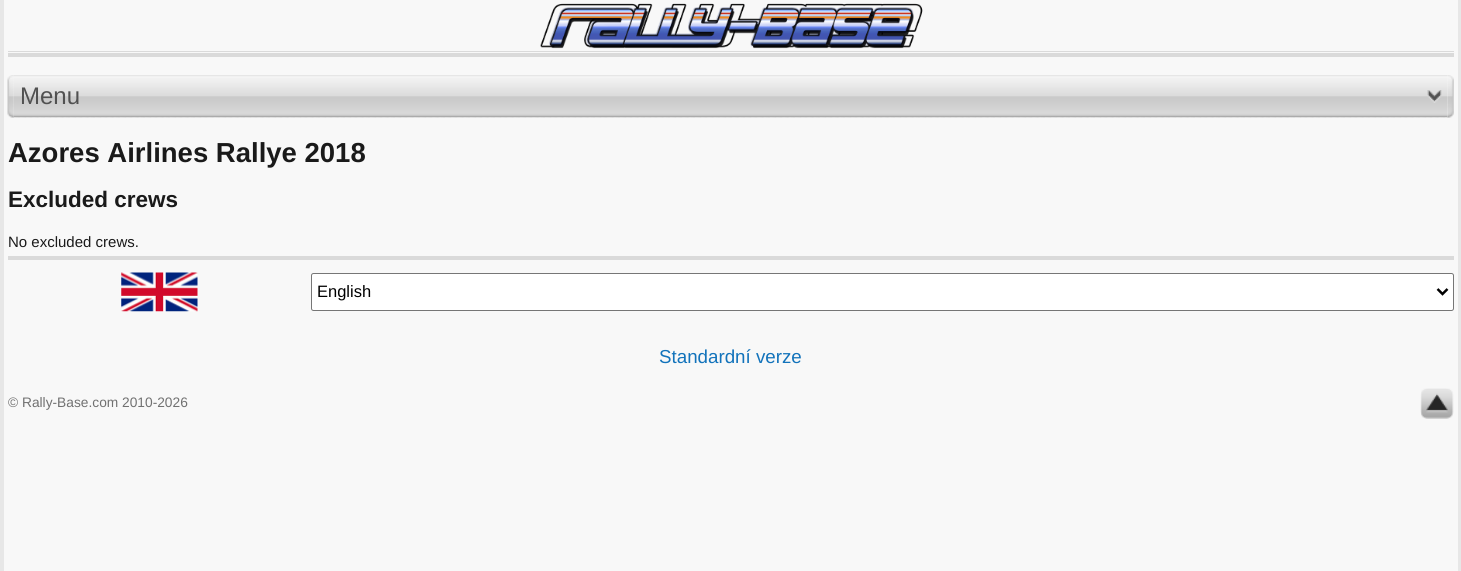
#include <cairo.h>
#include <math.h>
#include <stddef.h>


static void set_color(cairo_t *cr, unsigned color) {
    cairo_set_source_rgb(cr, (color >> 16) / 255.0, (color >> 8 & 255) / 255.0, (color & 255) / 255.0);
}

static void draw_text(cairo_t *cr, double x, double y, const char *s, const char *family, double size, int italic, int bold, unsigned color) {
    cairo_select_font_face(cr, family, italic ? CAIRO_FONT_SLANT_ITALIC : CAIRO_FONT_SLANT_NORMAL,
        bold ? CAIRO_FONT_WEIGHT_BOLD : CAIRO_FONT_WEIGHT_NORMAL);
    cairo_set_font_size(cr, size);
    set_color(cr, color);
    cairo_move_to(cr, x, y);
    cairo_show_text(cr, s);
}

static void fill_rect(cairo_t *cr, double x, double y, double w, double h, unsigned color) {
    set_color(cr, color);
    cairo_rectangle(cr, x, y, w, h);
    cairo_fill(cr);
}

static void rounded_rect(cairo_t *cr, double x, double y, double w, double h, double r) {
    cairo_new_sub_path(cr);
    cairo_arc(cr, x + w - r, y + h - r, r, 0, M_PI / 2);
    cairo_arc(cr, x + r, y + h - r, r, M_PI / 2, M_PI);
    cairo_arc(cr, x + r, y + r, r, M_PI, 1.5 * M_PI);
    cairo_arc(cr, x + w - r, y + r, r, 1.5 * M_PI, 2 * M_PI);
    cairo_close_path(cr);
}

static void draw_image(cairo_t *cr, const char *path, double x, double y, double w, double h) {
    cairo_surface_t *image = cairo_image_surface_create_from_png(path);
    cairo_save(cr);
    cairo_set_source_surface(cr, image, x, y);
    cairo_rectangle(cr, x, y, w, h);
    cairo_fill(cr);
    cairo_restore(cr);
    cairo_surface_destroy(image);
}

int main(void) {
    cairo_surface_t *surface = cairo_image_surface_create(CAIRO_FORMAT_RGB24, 1461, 571);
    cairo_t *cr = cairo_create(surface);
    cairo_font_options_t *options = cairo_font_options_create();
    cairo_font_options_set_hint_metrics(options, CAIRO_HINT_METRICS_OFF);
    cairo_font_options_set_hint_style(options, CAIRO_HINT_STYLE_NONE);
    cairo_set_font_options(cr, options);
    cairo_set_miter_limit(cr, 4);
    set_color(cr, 0xE7E7E7);
    cairo_paint(cr);
    fill_rect(cr, 4, 0, 1454, 571, 0xF8F8F8);
    draw_image(cr, "assets/img1.png", 540, 3, 383, 46);
    fill_rect(cr, 8, 51, 1446, 1, 0xDADADA);
    fill_rect(cr, 8, 53, 1446, 4, 0xDADADA);
    draw_image(cr, "assets/img2.png", 13, 75, 1435, 43);
    draw_image(cr, "assets/img3.png", 7, 75, 7, 43);
    draw_text(cr, 20, 104, "Menu", "Liberation Sans", 24, 0, 0, 0x515151);
    draw_image(cr, "assets/img4.png", 1427, 90, 15, 13);
    draw_image(cr, "assets/img5.png", 1447, 75, 7, 43);
    draw_text(cr, 8, 162, "Azores Airlines Rallye 2018", "Liberation Sans", 27.5, 0, 1, 0x1A1A1A);
    draw_text(cr, 8, 207, "Excluded crews", "Liberation Sans", 22.5, 0, 1, 0x1A1A1A);
    draw_text(cr, 8, 247, "No excluded crews.", "Liberation Sans", 15, 0, 0, 0x1A1A1A);
    fill_rect(cr, 8, 256, 1446, 4, 0xDADADA);
    draw_image(cr, "assets/img6.png", 121, 272, 77, 40);
    set_color(cr, 0xFFFFFF);
    rounded_rect(cr, 311.5, 273.5, 1142, 37, 2);
    cairo_fill_preserve(cr);
    set_color(cr, 0x767676);
    cairo_set_line_width(cr, 1);
    cairo_stroke(cr);
    cairo_new_path(cr);
    cairo_move_to(cr, 1437.5, 289);
    cairo_line_to(cr, 1442.5, 294);
    cairo_line_to(cr, 1447.5, 289);
    set_color(cr, 0x000000);
    cairo_set_line_width(cr, 2.5);
    cairo_stroke(cr);
    draw_text(cr, 317, 297, "English", "Liberation Sans", 16.5, 0, 0, 0x000000);
    draw_text(cr, 659, 363, "Standardní verze", "Liberation Sans", 18.75, 0, 0, 0x1273BB);
    draw_text(cr, 8, 407, "© Rally-Base.com 2010-2026", "Liberation Sans", 13.75, 0, 0, 0x717171);
    draw_image(cr, "assets/img7.png", 1420, 388, 34, 31);
    cairo_surface_write_to_png(surface, "output.png");
    cairo_font_options_destroy(options);
    cairo_destroy(cr);
    cairo_surface_destroy(surface);
    return 0;
}
